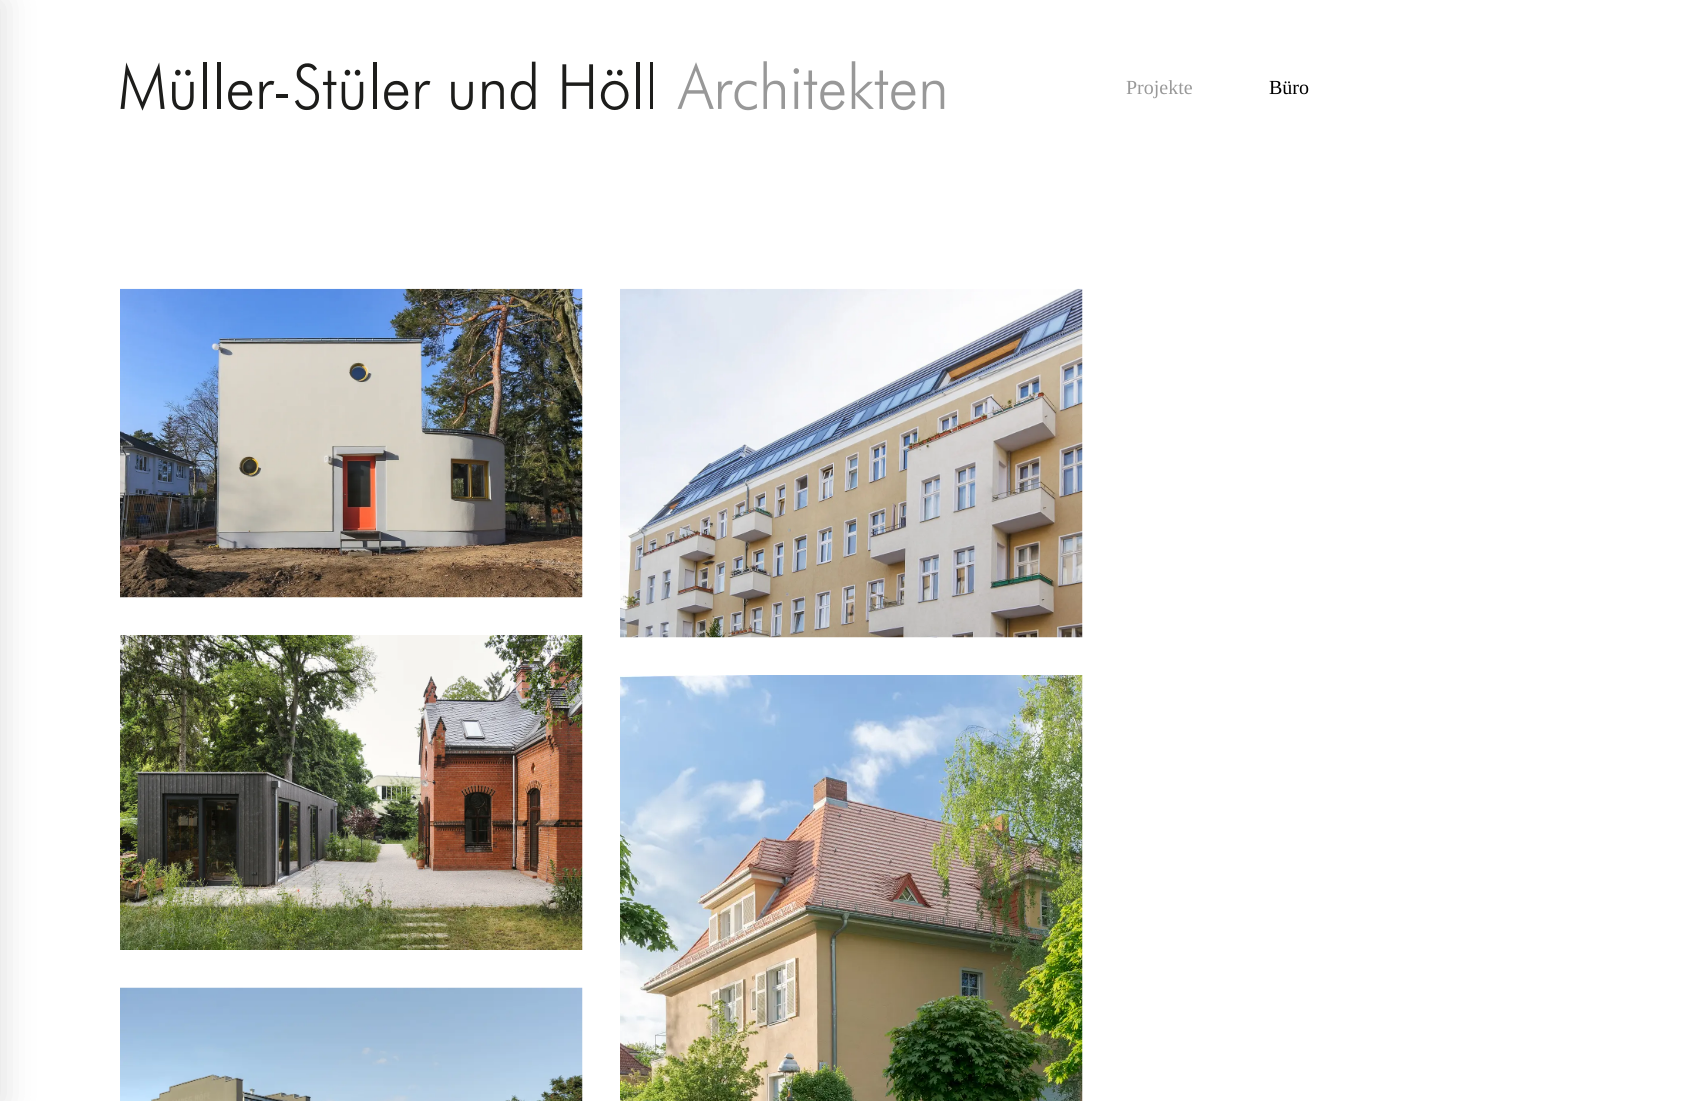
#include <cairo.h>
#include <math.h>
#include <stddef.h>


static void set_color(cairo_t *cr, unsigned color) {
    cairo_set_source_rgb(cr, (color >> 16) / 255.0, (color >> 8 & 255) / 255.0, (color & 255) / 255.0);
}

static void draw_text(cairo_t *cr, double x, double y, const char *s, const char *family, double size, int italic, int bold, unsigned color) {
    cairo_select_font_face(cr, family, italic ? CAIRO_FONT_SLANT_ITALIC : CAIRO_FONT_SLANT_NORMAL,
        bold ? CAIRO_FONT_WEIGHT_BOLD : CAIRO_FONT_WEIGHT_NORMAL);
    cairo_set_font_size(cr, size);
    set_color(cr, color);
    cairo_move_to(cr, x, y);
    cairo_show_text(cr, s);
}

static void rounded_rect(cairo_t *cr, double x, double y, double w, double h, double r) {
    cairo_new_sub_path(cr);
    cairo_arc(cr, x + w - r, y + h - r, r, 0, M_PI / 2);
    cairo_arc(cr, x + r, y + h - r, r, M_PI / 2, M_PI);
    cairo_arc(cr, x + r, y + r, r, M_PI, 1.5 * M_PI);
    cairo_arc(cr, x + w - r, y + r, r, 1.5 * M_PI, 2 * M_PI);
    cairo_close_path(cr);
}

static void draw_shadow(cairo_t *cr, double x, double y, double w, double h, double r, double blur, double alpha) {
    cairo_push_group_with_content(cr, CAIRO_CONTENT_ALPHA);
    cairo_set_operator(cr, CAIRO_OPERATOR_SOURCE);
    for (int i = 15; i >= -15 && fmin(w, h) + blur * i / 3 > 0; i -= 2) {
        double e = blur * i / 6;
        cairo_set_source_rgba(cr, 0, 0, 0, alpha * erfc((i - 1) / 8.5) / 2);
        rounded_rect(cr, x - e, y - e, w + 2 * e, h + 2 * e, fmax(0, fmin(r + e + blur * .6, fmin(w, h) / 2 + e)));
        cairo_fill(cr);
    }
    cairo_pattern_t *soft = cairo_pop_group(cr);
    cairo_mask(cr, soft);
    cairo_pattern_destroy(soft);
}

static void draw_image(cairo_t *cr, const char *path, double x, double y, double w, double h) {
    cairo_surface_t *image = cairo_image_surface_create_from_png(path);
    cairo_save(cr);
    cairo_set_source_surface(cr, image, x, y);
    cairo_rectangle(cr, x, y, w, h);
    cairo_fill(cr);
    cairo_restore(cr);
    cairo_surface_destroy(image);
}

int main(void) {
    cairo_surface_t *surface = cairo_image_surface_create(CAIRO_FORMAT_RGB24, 1702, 1101);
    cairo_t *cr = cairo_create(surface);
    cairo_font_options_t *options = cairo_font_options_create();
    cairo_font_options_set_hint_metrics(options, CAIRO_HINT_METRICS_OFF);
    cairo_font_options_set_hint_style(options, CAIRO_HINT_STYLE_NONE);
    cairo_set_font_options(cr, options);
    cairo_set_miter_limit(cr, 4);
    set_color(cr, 0xFFFFFF);
    cairo_paint(cr);
    set_color(cr, 0x000000);
    draw_shadow(cr, -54, 1, 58, 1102, 0, 18, 0.12);
    draw_image(cr, "assets/img1.png", 120, 61, 825, 50);
    draw_text(cr, 1126, 94, "Projekte", "Liberation Serif", 20, 0, 0, 0x999999);
    draw_text(cr, 1269, 94, "Büro", "Liberation Serif", 20, 0, 0, 0x000000);
    draw_image(cr, "assets/img2.png", 120, 288, 463, 310);
    draw_image(cr, "assets/img3.png", 120, 635, 463, 315);
    draw_image(cr, "assets/img4.png", 120, 987, 463, 114);
    draw_image(cr, "assets/img5.png", 620, 288, 463, 350);
    draw_image(cr, "assets/img6.png", 620, 675, 463, 426);
    cairo_surface_write_to_png(surface, "output.png");
    cairo_font_options_destroy(options);
    cairo_destroy(cr);
    cairo_surface_destroy(surface);
    return 0;
}
